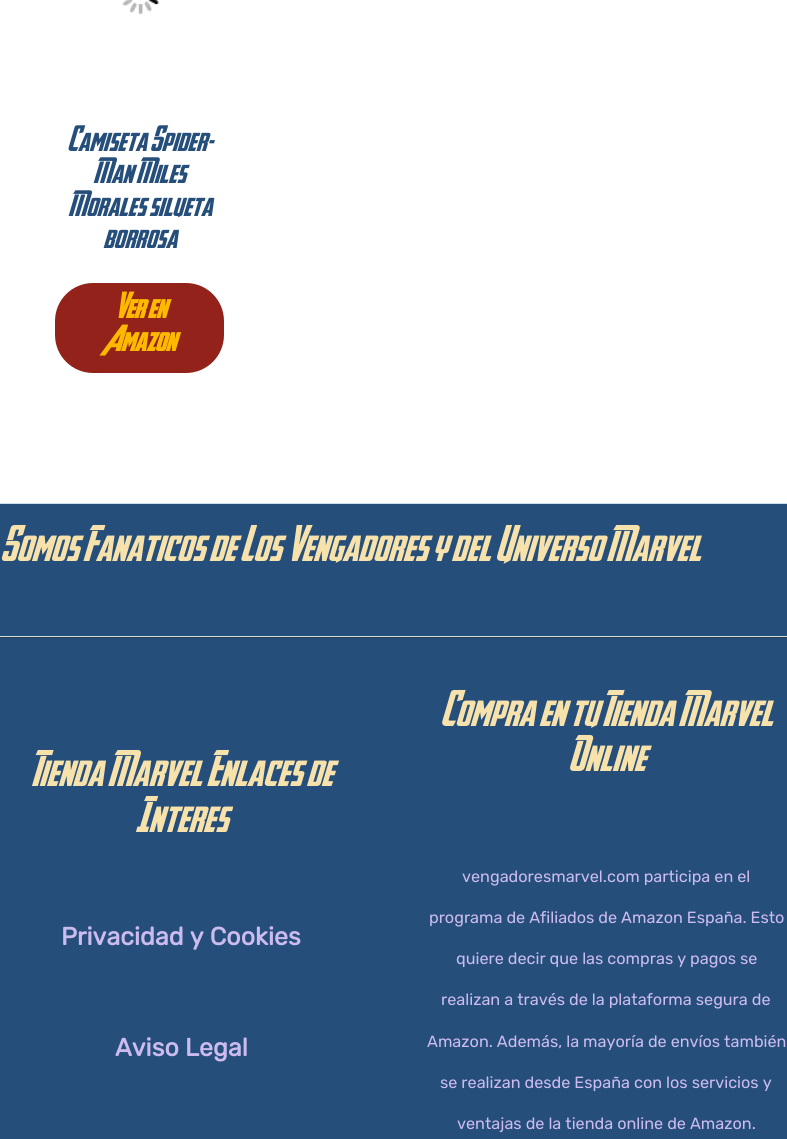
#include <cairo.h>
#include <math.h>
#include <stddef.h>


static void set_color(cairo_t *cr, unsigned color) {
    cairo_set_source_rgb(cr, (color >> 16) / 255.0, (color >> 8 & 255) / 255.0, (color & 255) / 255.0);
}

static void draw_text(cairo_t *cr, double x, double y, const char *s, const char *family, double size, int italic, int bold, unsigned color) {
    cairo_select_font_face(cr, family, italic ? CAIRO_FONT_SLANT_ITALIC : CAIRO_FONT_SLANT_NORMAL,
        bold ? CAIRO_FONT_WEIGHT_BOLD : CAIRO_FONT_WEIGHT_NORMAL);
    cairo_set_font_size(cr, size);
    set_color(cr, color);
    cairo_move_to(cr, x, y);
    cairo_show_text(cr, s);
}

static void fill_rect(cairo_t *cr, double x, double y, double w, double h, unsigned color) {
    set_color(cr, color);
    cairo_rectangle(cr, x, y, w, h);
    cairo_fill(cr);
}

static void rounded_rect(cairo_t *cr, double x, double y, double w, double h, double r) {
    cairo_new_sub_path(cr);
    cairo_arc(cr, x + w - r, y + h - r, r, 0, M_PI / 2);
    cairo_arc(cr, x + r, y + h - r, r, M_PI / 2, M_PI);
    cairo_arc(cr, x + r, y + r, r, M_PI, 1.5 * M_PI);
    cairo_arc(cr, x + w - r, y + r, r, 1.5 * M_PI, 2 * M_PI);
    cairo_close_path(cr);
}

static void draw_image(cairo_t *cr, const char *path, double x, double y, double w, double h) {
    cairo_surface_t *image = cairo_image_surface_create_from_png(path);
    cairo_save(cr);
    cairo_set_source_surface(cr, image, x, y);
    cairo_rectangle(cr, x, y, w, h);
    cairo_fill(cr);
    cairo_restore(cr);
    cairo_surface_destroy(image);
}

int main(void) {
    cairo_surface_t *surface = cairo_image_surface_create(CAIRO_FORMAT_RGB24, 787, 1139);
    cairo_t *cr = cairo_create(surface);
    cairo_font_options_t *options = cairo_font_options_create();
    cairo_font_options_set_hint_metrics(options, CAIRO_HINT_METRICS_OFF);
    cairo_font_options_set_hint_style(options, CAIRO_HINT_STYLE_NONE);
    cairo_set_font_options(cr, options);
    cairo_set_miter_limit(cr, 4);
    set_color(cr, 0xFFFFFF);
    cairo_paint(cr);
    draw_image(cr, "assets/img1.png", 122, 0, 37, 14);
    draw_text(cr, 67, 151, "Camiseta Spider-", "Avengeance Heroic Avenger", 25, 0, 0, 0x254E7B);
    draw_text(cr, 93, 183, "Man Miles", "Avengeance Heroic Avenger", 25, 0, 0, 0x254E7B);
    draw_text(cr, 68, 216, "Morales silueta", "Avengeance Heroic Avenger", 25, 0, 0, 0x254E7B);
    draw_text(cr, 103, 248, "borrosa", "Avengeance Heroic Avenger", 25, 0, 0, 0x254E7B);
    set_color(cr, 0x93231A);
    rounded_rect(cr, 55, 283, 169, 90, 38);
    cairo_fill(cr);
    draw_text(cr, 114, 318, "Ver en", "Avengeance Heroic Avenger", 25, 0, 1, 0xFCB900);
    draw_text(cr, 104, 351, "Amazon", "Avengeance Heroic Avenger", 25, 0, 1, 0xFCB900);
    fill_rect(cr, 0, 637, 787, 1, 0x3A3A3A);
    fill_rect(cr, 0, 504, 787, 132, 0x254E7B);
    fill_rect(cr, 0, 503, 787, 1, 0xCBE2EF);
    draw_text(cr, 0, 561, "Somos Fanaticos de Los Vengadores y del Universo Marvel", "Avengeance Heroic Avenger", 35, 0, 0, 0xF8E2AC);
    fill_rect(cr, 0, 638, 787, 501, 0x254E7B);
    fill_rect(cr, 0, 636, 787, 1, 0xCBE2EF);
    draw_text(cr, 31, 786, "Tienda Marvel Enlaces de", "Avengeance Heroic Avenger", 35, 0, 0, 0xF8E2AC);
    draw_text(cr, 135, 832, "Interes", "Avengeance Heroic Avenger", 35, 0, 0, 0xF8E2AC);
    draw_text(cr, 61, 945, "Privacidad y Cookies", "Rubik", 25, 0, 1, 0xCCBBEE);
    draw_text(cr, 115, 1056, "Aviso Legal", "Rubik", 25, 0, 1, 0xCCBBEE);
    draw_text(cr, 440, 726, "Compra en tu Tienda Marvel", "Avengeance Heroic Avenger", 35, 0, 0, 0xF8E2AC);
    draw_text(cr, 568, 771, "Online", "Avengeance Heroic Avenger", 35, 0, 0, 0xF8E2AC);
    draw_text(cr, 462, 882, "vengadoresmarvel.com participa en el", "Rubik Light", 16.25, 0, 0, 0xCCBBEE);
    draw_text(cr, 429, 923, "programa de Afiliados de Amazon España. Esto", "Rubik Light", 16.25, 0, 0, 0xCCBBEE);
    draw_text(cr, 456, 964, "quiere decir que las compras y pagos se", "Rubik Light", 16.25, 0, 0, 0xCCBBEE);
    draw_text(cr, 441, 1005, "realizan a través de la plataforma segura de", "Rubik Light", 16.25, 0, 0, 0xCCBBEE);
    draw_text(cr, 427, 1047, "Amazon. Además, la mayoría de envíos también", "Rubik Light", 16.25, 0, 0, 0xCCBBEE);
    draw_text(cr, 440, 1088, "se realizan desde España con los servicios y", "Rubik Light", 16.25, 0, 0, 0xCCBBEE);
    draw_text(cr, 457, 1129, "ventajas de la tienda online de Amazon.", "Rubik Light", 16.25, 0, 0, 0xCCBBEE);
    cairo_surface_write_to_png(surface, "output.png");
    cairo_font_options_destroy(options);
    cairo_destroy(cr);
    cairo_surface_destroy(surface);
    return 0;
}
